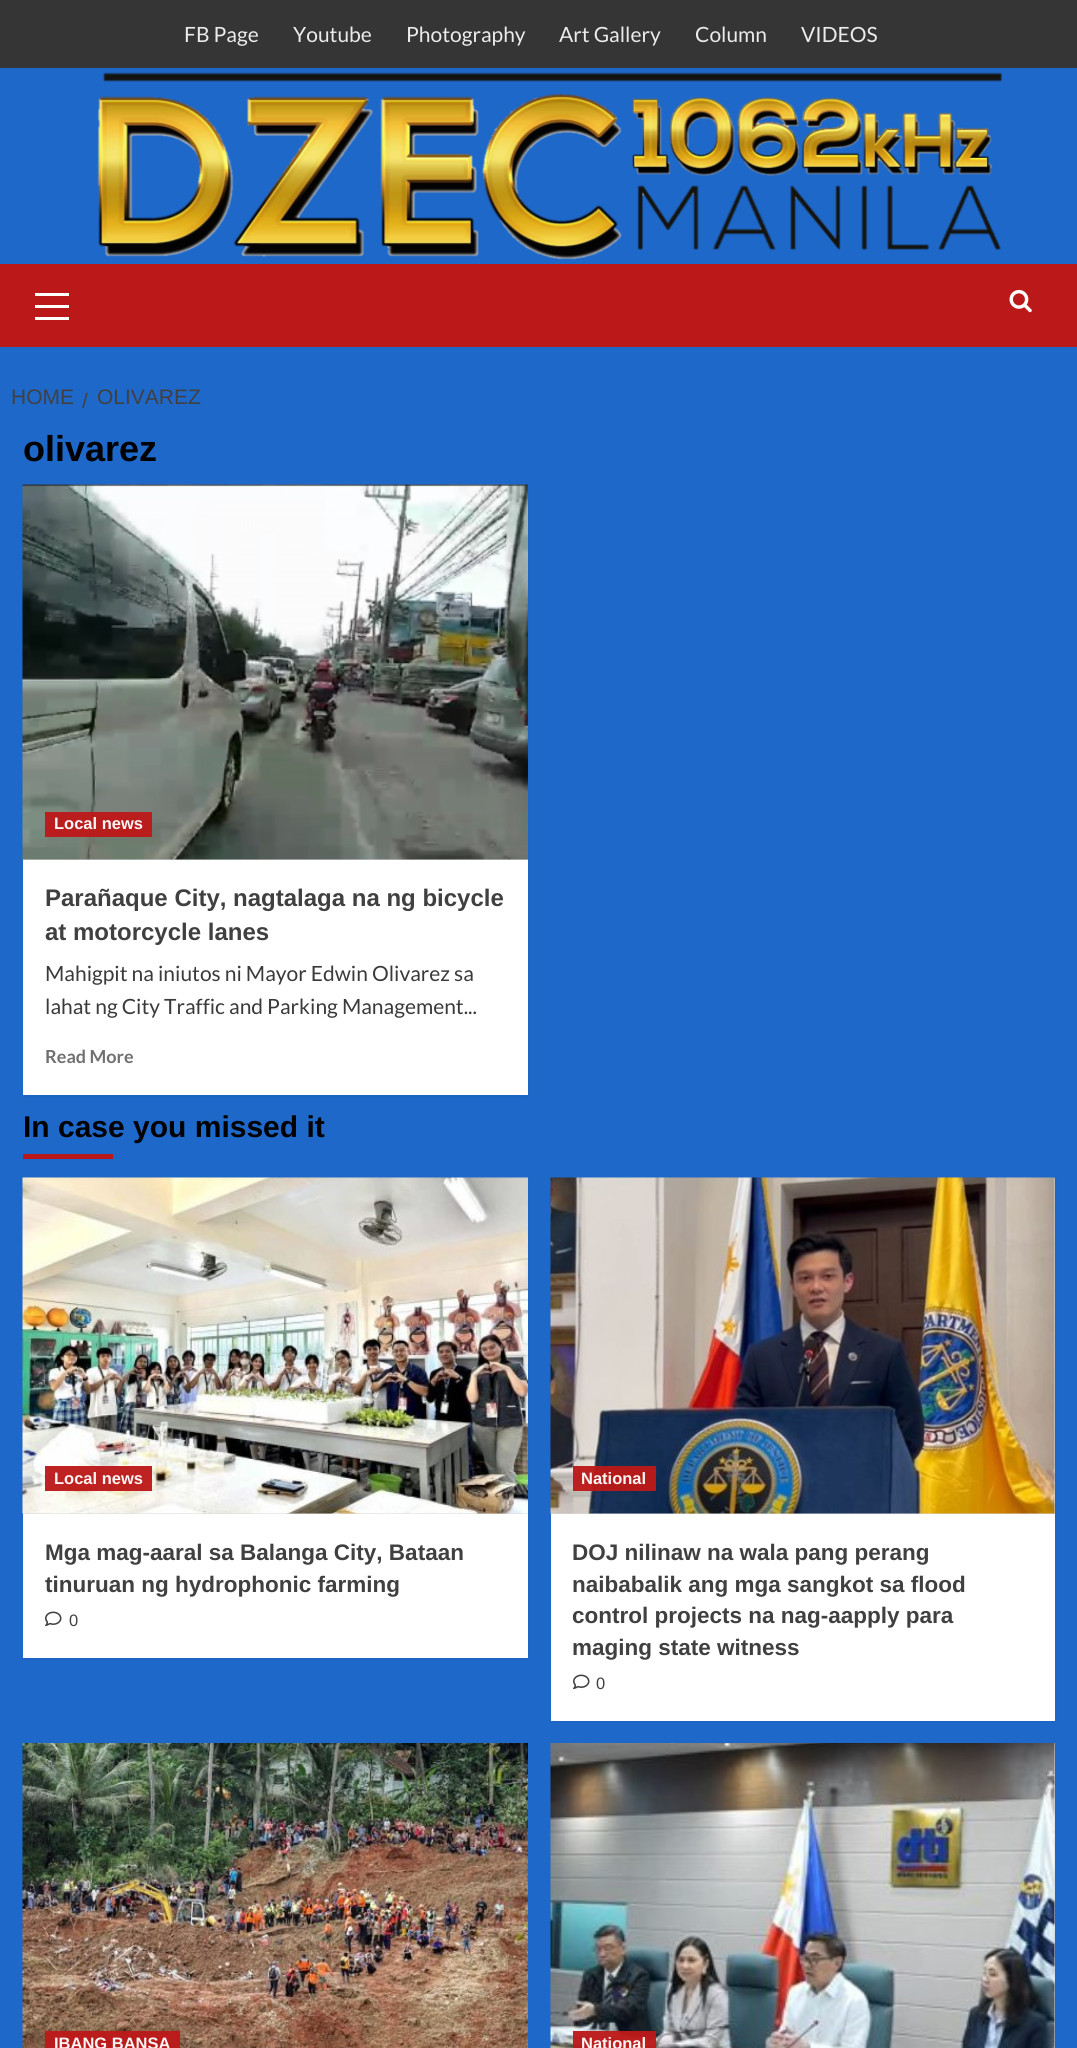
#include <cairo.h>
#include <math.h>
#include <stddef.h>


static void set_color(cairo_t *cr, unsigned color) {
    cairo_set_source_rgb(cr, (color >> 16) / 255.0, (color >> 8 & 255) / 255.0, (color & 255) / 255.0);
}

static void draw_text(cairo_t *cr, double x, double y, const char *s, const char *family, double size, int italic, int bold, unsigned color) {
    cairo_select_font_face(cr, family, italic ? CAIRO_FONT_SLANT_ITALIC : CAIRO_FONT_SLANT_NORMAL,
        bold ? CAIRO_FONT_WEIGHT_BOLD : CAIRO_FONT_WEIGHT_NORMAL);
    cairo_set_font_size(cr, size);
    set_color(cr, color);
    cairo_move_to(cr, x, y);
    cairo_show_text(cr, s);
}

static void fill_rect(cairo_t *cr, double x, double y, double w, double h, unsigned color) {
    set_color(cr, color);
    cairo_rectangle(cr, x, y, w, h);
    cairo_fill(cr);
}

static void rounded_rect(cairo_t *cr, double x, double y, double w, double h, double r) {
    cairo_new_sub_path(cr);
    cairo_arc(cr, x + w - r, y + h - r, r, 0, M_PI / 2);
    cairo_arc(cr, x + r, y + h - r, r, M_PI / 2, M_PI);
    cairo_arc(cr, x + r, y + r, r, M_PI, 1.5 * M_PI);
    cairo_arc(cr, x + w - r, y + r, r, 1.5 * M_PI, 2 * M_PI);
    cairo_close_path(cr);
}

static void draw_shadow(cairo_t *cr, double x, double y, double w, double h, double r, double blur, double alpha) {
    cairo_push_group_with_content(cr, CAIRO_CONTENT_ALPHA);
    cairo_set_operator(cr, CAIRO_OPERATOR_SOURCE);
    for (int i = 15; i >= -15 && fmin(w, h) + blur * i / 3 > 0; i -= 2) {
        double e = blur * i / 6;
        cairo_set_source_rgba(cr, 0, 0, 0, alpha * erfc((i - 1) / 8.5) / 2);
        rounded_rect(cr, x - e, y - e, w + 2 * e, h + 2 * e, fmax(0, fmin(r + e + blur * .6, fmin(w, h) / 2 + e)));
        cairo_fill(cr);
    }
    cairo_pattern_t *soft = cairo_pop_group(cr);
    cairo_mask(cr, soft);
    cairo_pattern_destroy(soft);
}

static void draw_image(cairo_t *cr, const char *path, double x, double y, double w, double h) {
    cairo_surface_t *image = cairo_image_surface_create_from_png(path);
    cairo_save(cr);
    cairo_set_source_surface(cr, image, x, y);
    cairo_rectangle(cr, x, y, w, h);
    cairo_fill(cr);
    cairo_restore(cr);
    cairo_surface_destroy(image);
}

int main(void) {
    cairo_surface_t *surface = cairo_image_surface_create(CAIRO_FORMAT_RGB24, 1077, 2048);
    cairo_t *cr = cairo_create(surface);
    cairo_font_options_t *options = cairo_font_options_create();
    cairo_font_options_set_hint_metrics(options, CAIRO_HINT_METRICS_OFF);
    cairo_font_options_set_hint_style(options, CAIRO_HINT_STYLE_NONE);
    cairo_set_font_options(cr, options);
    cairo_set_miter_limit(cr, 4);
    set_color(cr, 0x1E68C9);
    cairo_paint(cr);
    fill_rect(cr, 0, 0, 1077, 68, 0x353535);
    draw_text(cr, 184, 42, "FB Page", "Lato", 21, 0, 0, 0xEBEBEB);
    draw_text(cr, 293, 42, "Youtube", "Lato", 21, 0, 0, 0xEBEBEB);
    draw_text(cr, 406, 42, "Photography", "Lato", 21, 0, 0, 0xEBEBEB);
    draw_text(cr, 559, 42, "Art Gallery", "Lato", 21, 0, 0, 0xEBEBEB);
    draw_text(cr, 695, 42, "Column", "Lato", 21, 0, 0, 0xEBEBEB);
    draw_text(cr, 801, 42, "VIDEOS", "Lato", 21, 0, 0, 0xEBEBEB);
    draw_image(cr, "assets/img1.png", 97, 72, 906, 188);
    fill_rect(cr, 0, 264, 1077, 83, 0xBB1919);
    fill_rect(cr, 35, 305, 34, 3, 0xFFFFFF);
    fill_rect(cr, 35, 293, 34, 3, 0xFFFFFF);
    fill_rect(cr, 35, 317, 34, 3, 0xFFFFFF);
    draw_image(cr, "assets/img2.png", 1009, 289, 23, 24);
    draw_text(cr, 11, 404, "HOME", "Liberation Sans", 21, 0, 0, 0x404040);
    draw_text(cr, 82, 408, "/", "Liberation Sans", 21, 0, 0, 0x404040);
    draw_text(cr, 97, 404, "OLIVAREZ", "Liberation Sans", 21, 0, 0, 0x404040);
    draw_text(cr, 23, 461, "olivarez", "Liberation Sans", 36, 0, 1, 0x000000);
    set_color(cr, 0x000000);
    draw_shadow(cr, 23, 486, 505, 611, 0, 1.5, 0.05);
    fill_rect(cr, 23, 860, 505, 235, 0xFFFFFF);
    fill_rect(cr, 23, 859, 505, 1, 0xD8D8D8);
    draw_image(cr, "assets/img3.png", 22, 484, 506, 376);
    cairo_set_source_rgba(cr, 0.733, 0.098, 0.098, 0.96);
    cairo_rectangle(cr, 45, 812, 107, 25);
    cairo_fill(cr);
    draw_text(cr, 54, 829, "Local news", "Liberation Sans", 16.5, 0, 1, 0xFCF6F6);
    draw_text(cr, 45, 906, "Parañaque City, nagtalaga na ng bicycle", "Liberation Sans", 24, 0, 1, 0x404040);
    draw_text(cr, 45, 940, "at motorcycle lanes", "Liberation Sans", 24, 0, 1, 0x404040);
    draw_text(cr, 45, 981, "Mahigpit na iniutos ni Mayor Edwin Olivarez sa", "Lato", 21, 0, 0, 0x3A3A3A);
    draw_text(cr, 45, 1014, "lahat ng City Traffic and Parking Management...", "Lato", 21, 0, 0, 0x3A3A3A);
    draw_text(cr, 45, 1063, "Read More", "Lato", 18, 0, 1, 0x707070);
    draw_text(cr, 23, 1137, "In case you missed it", "Liberation Sans", 30, 0, 1, 0x000000);
    fill_rect(cr, 23, 1154, 90, 5, 0xBB1919);
    set_color(cr, 0x000000);
    draw_shadow(cr, 23, 1179, 505, 480, 0, 1.5, 0.05);
    fill_rect(cr, 23, 1514, 505, 144, 0xFFFFFF);
    fill_rect(cr, 23, 1513, 505, 1, 0xD8D8D8);
    draw_image(cr, "assets/img4.png", 22, 1177, 506, 337);
    cairo_set_source_rgba(cr, 0.733, 0.098, 0.098, 0.96);
    cairo_rectangle(cr, 45, 1466, 107, 25);
    cairo_fill(cr);
    draw_text(cr, 54, 1484, "Local news", "Liberation Sans", 16.5, 0, 1, 0xFCF6F6);
    draw_text(cr, 45, 1560, "Mga mag-aaral sa Balanga City, Bataan", "Liberation Sans", 22.5, 0, 1, 0x404040);
    draw_text(cr, 45, 1592, "tinuruan ng hydrophonic farming", "Liberation Sans", 22.5, 0, 1, 0x404040);
    draw_image(cr, "assets/img5.png", 45, 1611, 17, 15);
    draw_text(cr, 69, 1626, "0", "Liberation Sans", 16.5, 0, 0, 0x404040);
    set_color(cr, 0x000000);
    draw_shadow(cr, 551, 1179, 504, 543, 0, 1.5, 0.05);
    fill_rect(cr, 551, 1514, 504, 207, 0xFFFFFF);
    fill_rect(cr, 551, 1178, 504, 336, 0xD8D8D8);
    draw_image(cr, "assets/img6.png", 550, 1177, 505, 337);
    cairo_set_source_rgba(cr, 0.733, 0.098, 0.098, 0.96);
    cairo_rectangle(cr, 573, 1466, 83, 25);
    cairo_fill(cr);
    draw_text(cr, 581, 1484, "National", "Liberation Sans", 16.5, 0, 1, 0xFCF6F6);
    draw_text(cr, 572, 1560, "DOJ nilinaw na wala pang perang", "Liberation Sans", 22.5, 0, 1, 0x404040);
    draw_text(cr, 572, 1592, "naibabalik ang mga sangkot sa flood", "Liberation Sans", 22.5, 0, 1, 0x404040);
    draw_text(cr, 572, 1623, "control projects na nag-aapply para", "Liberation Sans", 22.5, 0, 1, 0x404040);
    draw_text(cr, 572, 1655, "maging state witness", "Liberation Sans", 22.5, 0, 1, 0x404040);
    draw_image(cr, "assets/img5.png", 573, 1674, 17, 15);
    draw_text(cr, 596, 1689, "0", "Liberation Sans", 16.5, 0, 0, 0x404040);
    draw_image(cr, "assets/img7.png", 22, 1743, 506, 305);
    cairo_set_source_rgba(cr, 0.733, 0.098, 0.098, 0.96);
    cairo_rectangle(cr, 45, 2031, 135, 17);
    cairo_fill(cr);
    draw_text(cr, 54, 2049, "IBANG BANSA", "Liberation Sans", 16.5, 0, 1, 0xFCF6F6);
    fill_rect(cr, 1054, 1743, 1, 305, 0xD8D8D8);
    draw_image(cr, "assets/img8.png", 550, 1743, 505, 305);
    cairo_set_source_rgba(cr, 0.733, 0.098, 0.098, 0.96);
    cairo_rectangle(cr, 573, 2031, 83, 17);
    cairo_fill(cr);
    draw_text(cr, 581, 2049, "National", "Liberation Sans", 16.5, 0, 1, 0xFCF6F6);
    cairo_surface_write_to_png(surface, "output.png");
    cairo_font_options_destroy(options);
    cairo_destroy(cr);
    cairo_surface_destroy(surface);
    return 0;
}
